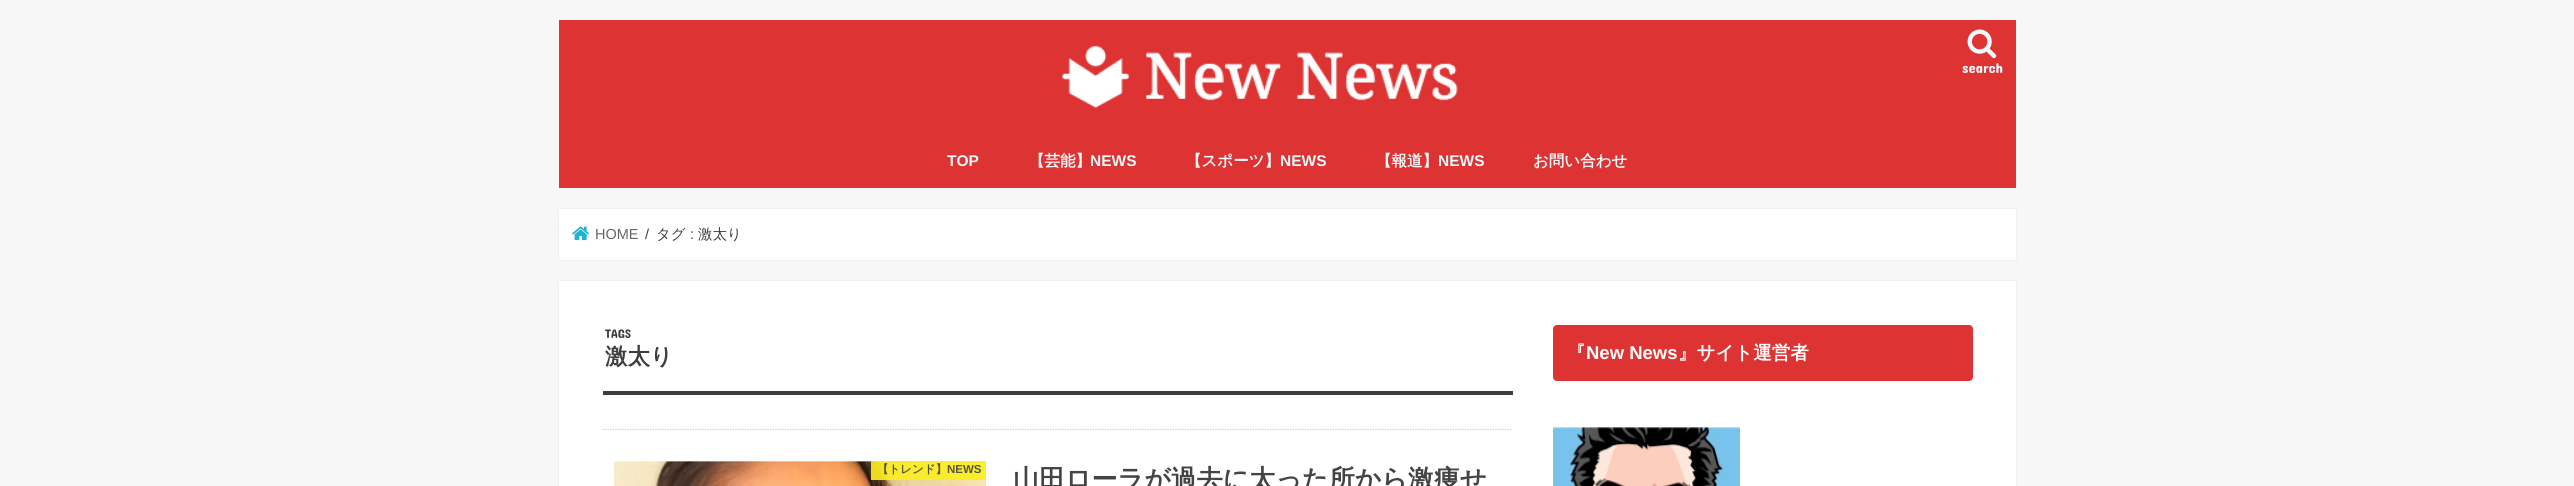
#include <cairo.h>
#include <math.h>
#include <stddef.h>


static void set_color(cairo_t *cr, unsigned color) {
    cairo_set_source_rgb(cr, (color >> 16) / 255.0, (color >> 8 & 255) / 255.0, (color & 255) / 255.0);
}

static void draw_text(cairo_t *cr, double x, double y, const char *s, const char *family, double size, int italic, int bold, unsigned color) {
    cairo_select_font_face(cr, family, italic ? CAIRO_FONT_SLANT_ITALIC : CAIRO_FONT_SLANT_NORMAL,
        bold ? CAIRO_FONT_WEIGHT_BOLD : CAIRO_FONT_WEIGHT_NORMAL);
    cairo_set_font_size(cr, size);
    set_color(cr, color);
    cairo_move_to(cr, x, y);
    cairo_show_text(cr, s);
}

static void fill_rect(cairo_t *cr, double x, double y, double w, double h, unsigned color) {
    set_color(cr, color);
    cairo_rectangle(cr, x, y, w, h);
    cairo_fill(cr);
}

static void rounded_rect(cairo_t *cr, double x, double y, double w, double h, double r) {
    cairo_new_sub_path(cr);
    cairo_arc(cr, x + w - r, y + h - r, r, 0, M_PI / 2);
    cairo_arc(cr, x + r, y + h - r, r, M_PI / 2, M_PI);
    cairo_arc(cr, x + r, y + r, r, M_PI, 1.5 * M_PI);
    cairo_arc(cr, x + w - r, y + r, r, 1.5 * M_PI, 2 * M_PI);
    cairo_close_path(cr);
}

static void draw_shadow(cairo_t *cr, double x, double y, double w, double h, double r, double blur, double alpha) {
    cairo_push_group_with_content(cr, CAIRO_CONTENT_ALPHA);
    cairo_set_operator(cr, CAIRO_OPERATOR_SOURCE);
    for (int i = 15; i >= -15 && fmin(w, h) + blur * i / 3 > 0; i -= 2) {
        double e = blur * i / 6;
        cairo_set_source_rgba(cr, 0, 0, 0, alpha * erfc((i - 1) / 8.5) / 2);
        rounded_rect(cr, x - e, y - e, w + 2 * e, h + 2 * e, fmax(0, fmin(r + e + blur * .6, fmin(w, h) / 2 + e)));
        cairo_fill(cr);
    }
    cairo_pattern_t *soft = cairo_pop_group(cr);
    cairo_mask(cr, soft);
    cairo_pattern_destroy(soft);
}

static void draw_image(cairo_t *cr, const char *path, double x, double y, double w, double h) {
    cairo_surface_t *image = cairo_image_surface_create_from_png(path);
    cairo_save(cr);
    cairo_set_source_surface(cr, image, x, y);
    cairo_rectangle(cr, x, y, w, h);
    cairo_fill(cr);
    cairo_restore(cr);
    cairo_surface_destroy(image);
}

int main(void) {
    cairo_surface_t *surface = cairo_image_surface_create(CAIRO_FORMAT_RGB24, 2574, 486);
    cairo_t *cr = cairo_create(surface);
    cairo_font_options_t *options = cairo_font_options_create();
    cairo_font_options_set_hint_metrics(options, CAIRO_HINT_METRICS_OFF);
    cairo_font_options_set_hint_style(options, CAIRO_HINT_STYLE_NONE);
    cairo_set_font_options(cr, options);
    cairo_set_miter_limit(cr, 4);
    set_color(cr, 0xF7F7F7);
    cairo_paint(cr);
    fill_rect(cr, 559, 20, 1457, 168, 0xDD3333);
    draw_image(cr, "assets/img1.png", 1062, 46, 396, 62);
    draw_image(cr, "assets/img2.png", 1967, 29, 30, 30);
    draw_text(cr, 1962, 73, "search", "Concert One", 14.5, 0, 0, 0xEDF9FC);
    draw_text(cr, 947, 166, "TOP", "Liberation Sans", 15.5, 0, 1, 0xEDF9FC);
    draw_text(cr, 1029, 166, "【芸能】", "WenQuanYi Zen Hei", 15.5, 0, 1, 0xEDF9FC);
    draw_text(cr, 1090, 166, "NEWS", "Liberation Sans", 15.5, 0, 1, 0xEDF9FC);
    draw_text(cr, 1186, 166, "【スポーツ】", "WenQuanYi Zen Hei", 15.5, 0, 1, 0xEDF9FC);
    draw_text(cr, 1280, 166, "NEWS", "Liberation Sans", 15.5, 0, 1, 0xEDF9FC);
    draw_text(cr, 1376, 166, "【報道】", "WenQuanYi Zen Hei", 15.5, 0, 1, 0xEDF9FC);
    draw_text(cr, 1438, 166, "NEWS", "Liberation Sans", 15.5, 0, 1, 0xEDF9FC);
    draw_text(cr, 1533, 166, "お問い合わせ", "WenQuanYi Zen Hei", 15.5, 0, 1, 0xEDF9FC);
    set_color(cr, 0xDDDDDD);
    draw_shadow(cr, 559, 209, 1457, 51, 0, 0.5, 1);
    fill_rect(cr, 559, 209, 1457, 51, 0xFFFFFF);
    draw_image(cr, "assets/img3.png", 572, 226, 17, 15);
    draw_text(cr, 595, 239, "HOME", "Liberation Sans", 14.5, 0, 0, 0x666666);
    draw_text(cr, 645, 239, "/", "Liberation Sans", 14.5, 0, 0, 0x3E3E3E);
    draw_text(cr, 656, 239, "タグ", "WenQuanYi Zen Hei Medium", 14.5, 0, 0, 0x3E3E3E);
    draw_text(cr, 690, 239, ":", "Liberation Sans", 14.5, 0, 0, 0x3E3E3E);
    draw_text(cr, 698, 239, "激太り", "WenQuanYi Zen Hei Medium", 14.5, 0, 0, 0x3E3E3E);
    set_color(cr, 0xDDDDDD);
    draw_shadow(cr, 559, 281, 1457, 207, 0, 0.5, 1);
    fill_rect(cr, 559, 281, 1457, 205, 0xFFFFFF);
    fill_rect(cr, 603, 391, 910, 4, 0x3E3E3E);
    draw_text(cr, 605, 338, "TAGS", "Concert One", 12.5, 0, 0, 0x3E3E3E);
    draw_text(cr, 605, 364, "激太り", "WenQuanYi Zen Hei", 22.5, 0, 1, 0x3E3E3E);
    cairo_new_path(cr);
    cairo_move_to(cr, 602.5, 429.5);
    cairo_line_to(cr, 1512.5, 429.5);
    set_color(cr, 0xCCCCCC);
    cairo_set_line_width(cr, 1.2);
    cairo_set_dash(cr, (double[]){1.25, 1.25}, 2, 0);
    cairo_stroke(cr);
    draw_image(cr, "assets/img4.png", 614, 461, 372, 25);
    cairo_set_source_rgba(cr, 0.988, 0.933, 0.129, 0.9);
    cairo_rectangle(cr, 871, 461, 115, 19);
    cairo_fill(cr);
    draw_text(cr, 877, 473, "【トレンド】", "WenQuanYi Zen Hei", 11.5, 0, 1, 0x565542);
    draw_text(cr, 947, 473, "NEWS", "Liberation Sans", 11.5, 0, 1, 0x565542);
    draw_text(cr, 1013, 488, "山田ローラが過去に太った所から激痩せ", "WenQuanYi Zen Hei", 26, 0, 1, 0x444444);
    set_color(cr, 0xDD3333);
    rounded_rect(cr, 1553, 325, 420, 56, 4);
    cairo_fill(cr);
    draw_text(cr, 1567, 359, "『", "WenQuanYi Zen Hei", 18.5, 0, 1, 0xFFFFFF);
    draw_text(cr, 1586, 359, "New News", "Liberation Sans", 18.5, 0, 1, 0xFFFFFF);
    draw_text(cr, 1678, 359, "』サイト運営者", "WenQuanYi Zen Hei", 18.5, 0, 1, 0xFFFFFF);
    draw_image(cr, "assets/img5.png", 1553, 427, 187, 59);
    cairo_surface_write_to_png(surface, "output.png");
    cairo_font_options_destroy(options);
    cairo_destroy(cr);
    cairo_surface_destroy(surface);
    return 0;
}
